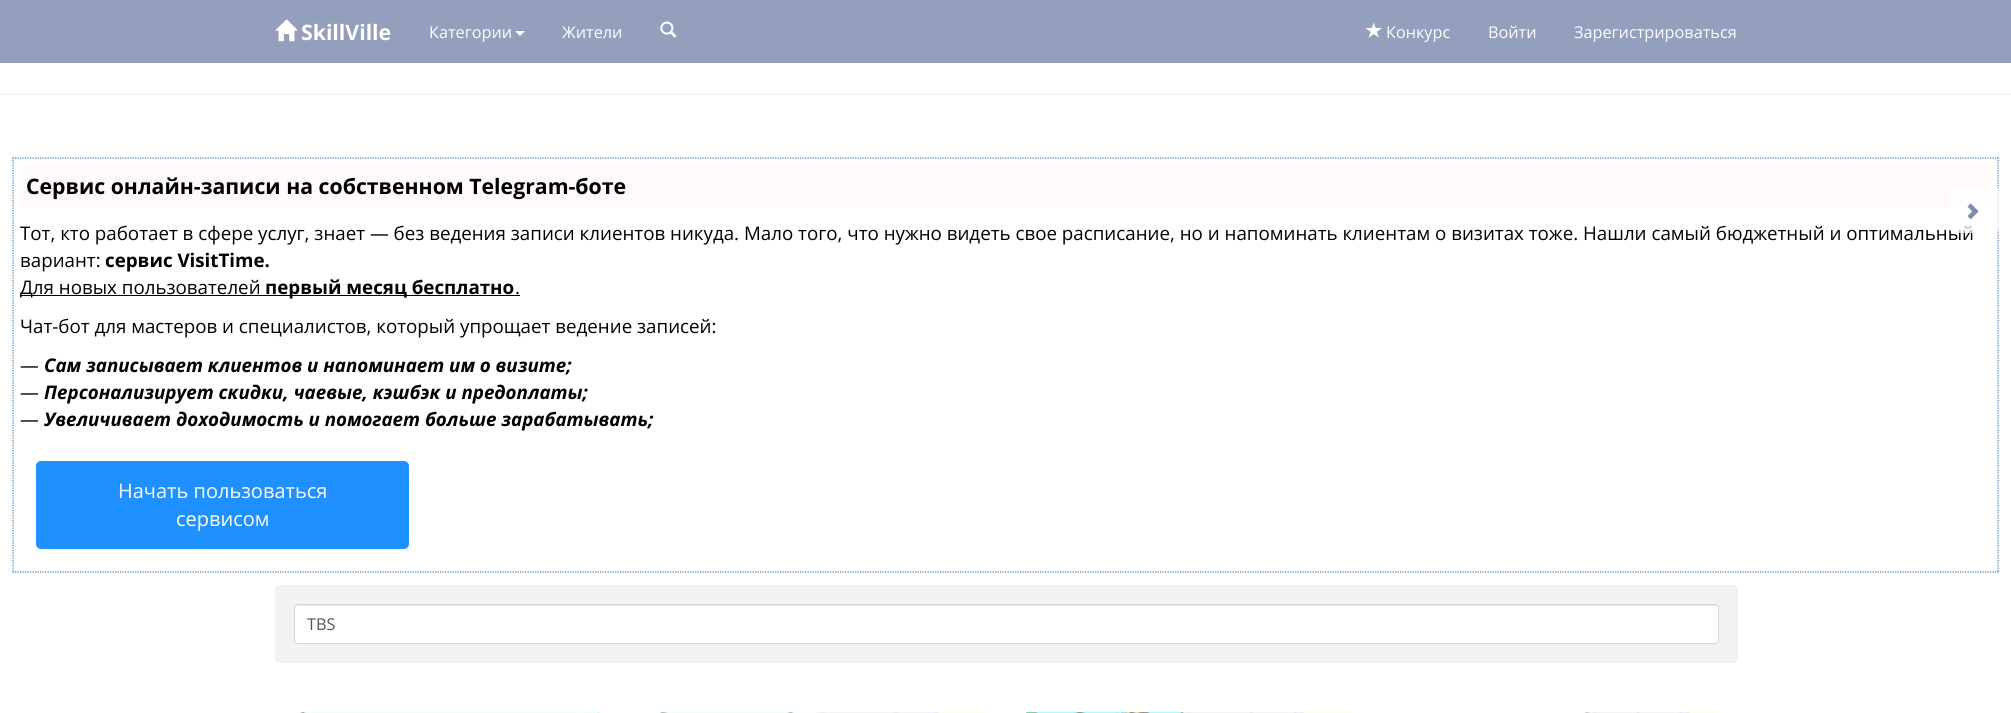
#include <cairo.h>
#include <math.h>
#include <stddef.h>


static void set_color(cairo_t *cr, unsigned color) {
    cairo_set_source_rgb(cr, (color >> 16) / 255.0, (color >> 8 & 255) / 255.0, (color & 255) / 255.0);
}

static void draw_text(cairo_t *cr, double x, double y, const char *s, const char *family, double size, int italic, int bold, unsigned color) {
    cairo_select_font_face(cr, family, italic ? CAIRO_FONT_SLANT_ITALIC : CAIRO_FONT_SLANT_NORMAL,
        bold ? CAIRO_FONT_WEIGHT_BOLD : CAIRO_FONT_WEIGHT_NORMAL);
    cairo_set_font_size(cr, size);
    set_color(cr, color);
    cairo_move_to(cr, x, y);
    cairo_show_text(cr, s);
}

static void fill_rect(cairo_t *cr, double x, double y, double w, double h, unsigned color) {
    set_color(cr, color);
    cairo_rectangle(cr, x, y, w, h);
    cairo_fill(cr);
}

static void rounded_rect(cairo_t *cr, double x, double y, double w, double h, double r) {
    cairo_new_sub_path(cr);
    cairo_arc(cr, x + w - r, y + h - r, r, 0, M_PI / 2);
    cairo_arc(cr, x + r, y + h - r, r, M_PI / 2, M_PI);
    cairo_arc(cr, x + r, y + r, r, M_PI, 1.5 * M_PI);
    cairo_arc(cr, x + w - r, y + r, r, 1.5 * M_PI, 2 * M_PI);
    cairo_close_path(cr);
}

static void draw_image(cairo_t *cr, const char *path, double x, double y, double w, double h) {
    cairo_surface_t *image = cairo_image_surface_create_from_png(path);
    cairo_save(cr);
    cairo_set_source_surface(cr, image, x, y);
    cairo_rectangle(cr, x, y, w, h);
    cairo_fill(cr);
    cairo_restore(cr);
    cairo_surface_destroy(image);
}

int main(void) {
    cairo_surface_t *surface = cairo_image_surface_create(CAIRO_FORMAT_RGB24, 2011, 713);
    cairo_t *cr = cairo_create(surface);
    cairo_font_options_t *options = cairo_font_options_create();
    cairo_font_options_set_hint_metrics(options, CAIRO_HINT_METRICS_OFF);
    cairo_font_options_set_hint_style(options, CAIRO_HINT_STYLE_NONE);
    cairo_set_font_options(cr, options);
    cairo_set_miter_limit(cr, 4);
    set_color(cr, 0xFFFFFF);
    cairo_paint(cr);
    fill_rect(cr, 0, 0, 2011, 63, 0x949EBD);
    draw_image(cr, "assets/img1.png", 275, 19, 23, 23);
    draw_text(cr, 301, 40, "SkillVille", "Open Sans", 21.25, 0, 1, 0xFFFFFF);
    draw_text(cr, 429, 38, "Категории", "Open Sans", 16.25, 0, 0, 0xFFFFFF);
    cairo_new_path(cr);
    cairo_move_to(cr, 515, 31);
    cairo_line_to(cr, 525, 31);
    cairo_line_to(cr, 520, 36);
    cairo_close_path(cr);
    cairo_fill(cr);
    draw_text(cr, 562, 38, "Жители", "Open Sans", 16.25, 0, 0, 0xFFFFFF);
    draw_image(cr, "assets/img2.png", 660, 21, 17, 17);
    draw_image(cr, "assets/img3.png", 1365, 22, 17, 16);
    draw_text(cr, 1386, 38, "Конкурс", "Open Sans", 16.25, 0, 0, 0xFFFFFF);
    draw_text(cr, 1488, 38, "Войти", "Open Sans", 16.25, 0, 0, 0xFFFFFF);
    draw_text(cr, 1574, 38, "Зарегистрироваться", "Open Sans", 16.25, 0, 0, 0xFFFFFF);
    fill_rect(cr, 0, 94, 2011, 1, 0xEFEFEF);
    cairo_new_path(cr);
    cairo_move_to(cr, 12.5, 158);
    cairo_line_to(cr, 1999, 158);
    set_color(cr, 0x4682B4);
    cairo_set_line_width(cr, 1.2);
    cairo_set_dash(cr, (double[]){1.25, 1.25}, 2, 0);
    cairo_stroke(cr);
    cairo_new_path(cr);
    cairo_move_to(cr, 1998, 157.5);
    cairo_line_to(cr, 1998, 572.5);
    cairo_stroke(cr);
    cairo_new_path(cr);
    cairo_move_to(cr, 12.5, 572);
    cairo_line_to(cr, 1999, 572);
    cairo_stroke(cr);
    cairo_new_path(cr);
    cairo_move_to(cr, 13, 157.5);
    cairo_line_to(cr, 13, 572.5);
    cairo_stroke(cr);
    fill_rect(cr, 20, 165, 1971, 43, 0xFFFAFA);
    draw_text(cr, 26, 194, "Сервис онлайн-записи на собственном Telegram-боте", "Open Sans", 21.25, 0, 1, 0x000000);
    draw_text(cr, 20, 240, "Тот, кто работает в сфере услуг, знает — без ведения записи клиентов никуда. Мало того, что нужно видеть свое расписание, но и напоминать клиентам о визитах тоже. Нашли самый бюджетный и оптимальный", "Open Sans", 18.75, 0, 0, 0x000000);
    draw_text(cr, 20, 267, "вариант:", "Open Sans", 18.75, 0, 0, 0x000000);
    draw_text(cr, 105, 267, "сервис VisitTime.", "Open Sans", 18.75, 0, 1, 0x000000);
    fill_rect(cr, 20, 295, 500, 1, 0x000000);
    draw_text(cr, 20, 294, "Для новых пользователей", "Open Sans", 18.75, 0, 0, 0x000000);
    draw_text(cr, 265, 294, "первый месяц бесплатно", "Open Sans", 18.75, 0, 1, 0x000000);
    draw_text(cr, 515, 294, ".", "Open Sans", 18.75, 0, 0, 0x000000);
    draw_text(cr, 20, 333, "Чат-бот для мастеров и специалистов, который упрощает ведение записей:", "Open Sans", 18.75, 0, 0, 0x000000);
    draw_text(cr, 20, 372, "—", "Open Sans", 18.75, 0, 0, 0x000000);
    draw_text(cr, 44, 372, "Сам записывает клиентов и напоминает им о визите;", "Open Sans", 18.75, 1, 1, 0x000000);
    draw_text(cr, 20, 399, "—", "Open Sans", 18.75, 0, 0, 0x000000);
    draw_text(cr, 44, 399, "Персонализирует скидки, чаевые, кэшбэк и предоплаты;", "Open Sans", 18.75, 1, 1, 0x000000);
    draw_text(cr, 20, 426, "—", "Open Sans", 18.75, 0, 0, 0x000000);
    draw_text(cr, 44, 426, "Увеличивает доходимость и помогает больше зарабатывать;", "Open Sans", 18.75, 1, 1, 0x000000);
    set_color(cr, 0x1E90FF);
    rounded_rect(cr, 35.5, 460.5, 374, 89, 5.5);
    cairo_fill_preserve(cr);
    set_color(cr, 0xFFFFFF);
    cairo_set_line_width(cr, 1);
    cairo_set_dash(cr, NULL, 0, 0);
    cairo_stroke(cr);
    draw_text(cr, 118, 498, "Начать пользоваться", "Open Sans", 20, 0, 0, 0xFFFFFF);
    draw_text(cr, 176, 526, "сервисом", "Open Sans", 20, 0, 0, 0xFFFFFF);
    set_color(cr, 0xF2F2F2);
    rounded_rect(cr, 275, 585, 1463, 78, 4);
    cairo_fill(cr);
    set_color(cr, 0xFFFFFF);
    rounded_rect(cr, 294, 604, 1425, 40, 4);
    cairo_fill(cr);
    set_color(cr, 0xECECEC);
    cairo_new_path(cr);
    cairo_move_to(cr, 298, 606);
    cairo_line_to(cr, 1715, 606);
    cairo_curve_to(cr, 1716, 606, 1718, 607, 1718, 609);
    cairo_line_to(cr, 1718, 608);
    cairo_curve_to(cr, 1718, 606, 1717, 605, 1716, 605);
    cairo_line_to(cr, 298, 605);
    cairo_curve_to(cr, 296, 605, 295, 606, 295, 608);
    cairo_line_to(cr, 295, 609);
    cairo_curve_to(cr, 295, 607, 296, 606, 298, 606);
    cairo_close_path(cr);
    cairo_fill(cr);
    rounded_rect(cr, 294.5, 604.5, 1424, 39, 3.5);
    set_color(cr, 0xD4D4D4);
    cairo_stroke(cr);
    draw_text(cr, 307, 630, "TBS", "Open Sans", 16.25, 0, 0, 0x555555);
    draw_image(cr, "assets/img4.png", 299, 712, 301, 1);
    draw_image(cr, "assets/img5.png", 660, 712, 327, 1);
    draw_image(cr, "assets/img6.png", 1026, 712, 326, 1);
    draw_image(cr, "assets/img7.png", 1584, 712, 134, 1);
    cairo_set_source_rgba(cr, 1, 1, 1, 0.72);
    rounded_rect(cr, 1949, 186, 50, 47, 6);
    cairo_fill(cr);
    draw_image(cr, "assets/img8.png", 1967, 203, 12, 17);
    cairo_surface_write_to_png(surface, "output.png");
    cairo_font_options_destroy(options);
    cairo_destroy(cr);
    cairo_surface_destroy(surface);
    return 0;
}
